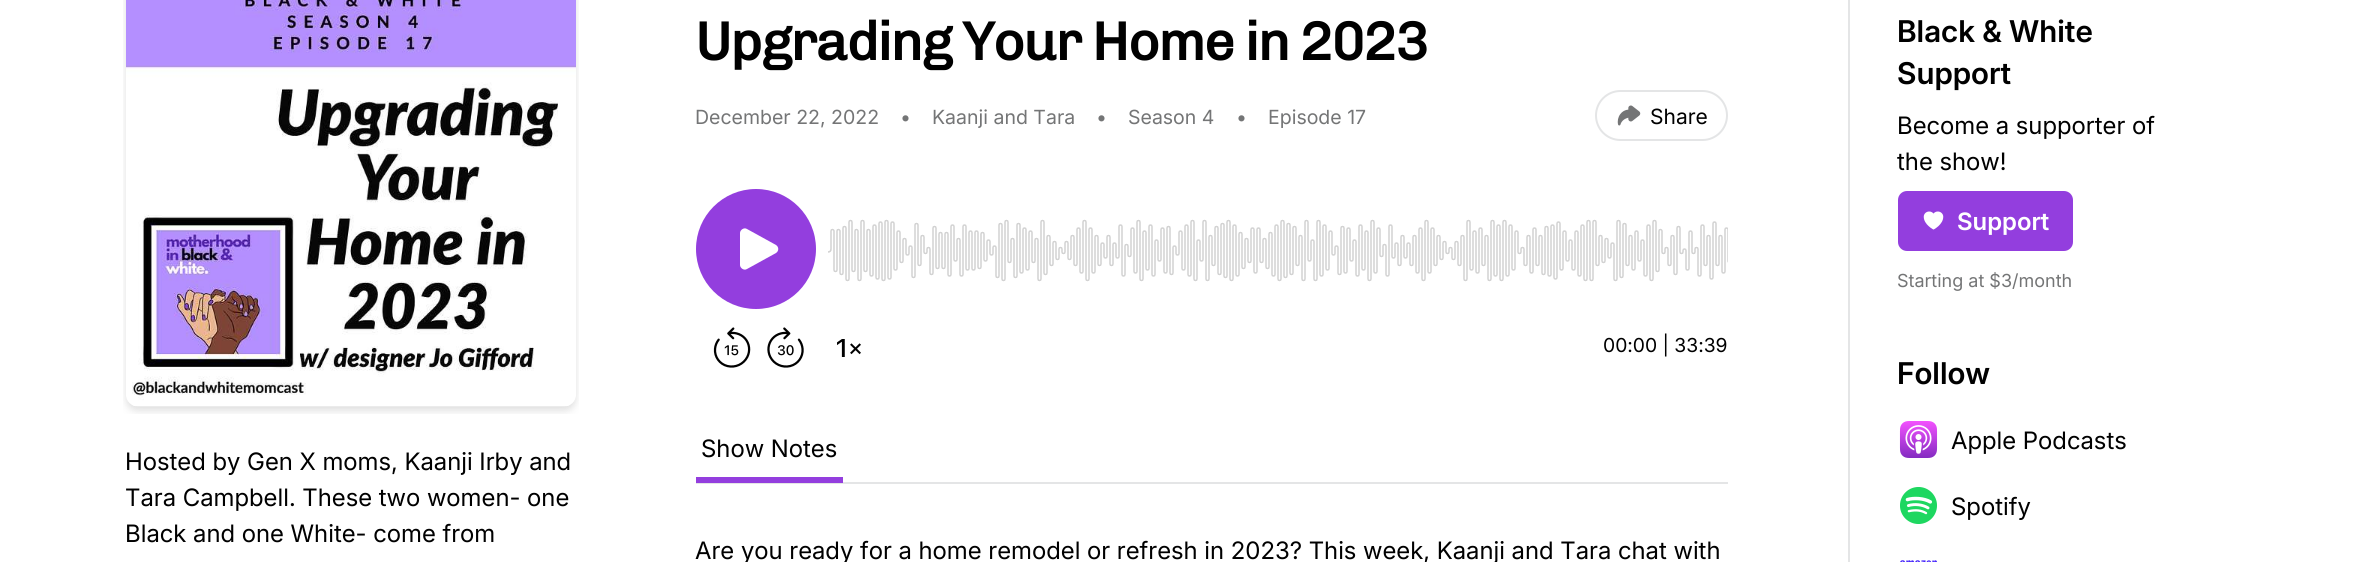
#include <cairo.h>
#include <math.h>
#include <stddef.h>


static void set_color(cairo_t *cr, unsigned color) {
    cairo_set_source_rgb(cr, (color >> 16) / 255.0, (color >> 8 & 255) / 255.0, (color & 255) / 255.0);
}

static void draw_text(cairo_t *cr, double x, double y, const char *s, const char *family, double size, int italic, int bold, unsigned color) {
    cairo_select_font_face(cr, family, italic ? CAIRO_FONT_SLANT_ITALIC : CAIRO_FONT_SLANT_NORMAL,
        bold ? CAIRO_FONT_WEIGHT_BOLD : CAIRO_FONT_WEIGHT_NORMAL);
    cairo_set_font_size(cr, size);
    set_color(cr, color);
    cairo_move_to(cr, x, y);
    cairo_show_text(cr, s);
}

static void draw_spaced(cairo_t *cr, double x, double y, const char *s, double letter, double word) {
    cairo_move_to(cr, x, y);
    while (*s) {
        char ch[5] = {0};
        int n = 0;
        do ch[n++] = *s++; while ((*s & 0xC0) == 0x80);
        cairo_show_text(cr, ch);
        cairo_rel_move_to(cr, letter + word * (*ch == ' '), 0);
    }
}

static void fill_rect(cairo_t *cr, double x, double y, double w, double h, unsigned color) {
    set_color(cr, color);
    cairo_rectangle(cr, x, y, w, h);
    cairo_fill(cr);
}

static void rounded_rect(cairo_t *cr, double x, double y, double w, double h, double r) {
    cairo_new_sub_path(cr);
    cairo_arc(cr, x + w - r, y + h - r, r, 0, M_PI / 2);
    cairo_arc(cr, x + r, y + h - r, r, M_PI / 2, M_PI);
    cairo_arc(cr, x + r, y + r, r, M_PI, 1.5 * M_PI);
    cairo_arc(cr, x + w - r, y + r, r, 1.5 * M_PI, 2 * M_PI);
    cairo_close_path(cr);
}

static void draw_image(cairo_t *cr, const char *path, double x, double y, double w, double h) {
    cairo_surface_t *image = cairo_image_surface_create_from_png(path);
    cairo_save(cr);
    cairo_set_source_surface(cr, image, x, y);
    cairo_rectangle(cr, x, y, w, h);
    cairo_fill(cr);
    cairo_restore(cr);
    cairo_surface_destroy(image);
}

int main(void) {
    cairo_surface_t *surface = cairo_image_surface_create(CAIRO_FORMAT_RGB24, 2362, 562);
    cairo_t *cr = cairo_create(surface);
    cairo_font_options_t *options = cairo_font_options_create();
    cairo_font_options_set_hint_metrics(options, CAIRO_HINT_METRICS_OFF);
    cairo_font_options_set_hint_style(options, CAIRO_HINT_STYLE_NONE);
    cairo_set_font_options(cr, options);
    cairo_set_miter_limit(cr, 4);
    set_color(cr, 0xFFFFFF);
    cairo_paint(cr);
    draw_image(cr, "assets/img1.png", 123, 0, 456, 414);
    draw_text(cr, 125, 470, "Hosted by Gen X moms, Kaanji Irby and", "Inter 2", 24, 0, 0, 0x000000);
    draw_text(cr, 125, 506, "Tara Campbell. These two women- one", "Inter 2", 24, 0, 0, 0x000000);
    draw_text(cr, 125, 542, "Black and one White- come from", "Inter 2", 24, 0, 0, 0x000000);
    cairo_select_font_face(cr, "Chivo", CAIRO_FONT_SLANT_NORMAL, CAIRO_FONT_WEIGHT_BOLD);
    cairo_set_font_size(cr, 54);
    draw_spaced(cr, 695, 60, "Upgrading Your Home in 2023", -1.35, 0);
    draw_text(cr, 695, 124, "December 22, 2022", "Inter", 19.5, 0, 0, 0x747576);
    draw_text(cr, 900, 124, "•", "Inter", 19.5, 0, 0, 0x747576);
    draw_text(cr, 932, 124, "Kaanji and Tara", "Inter", 19.5, 0, 0, 0x747576);
    draw_text(cr, 1096, 124, "•", "Inter", 19.5, 0, 0, 0x747576);
    draw_text(cr, 1128, 124, "Season 4", "Inter", 19.5, 0, 0, 0x747576);
    draw_text(cr, 1236, 124, "•", "Inter", 19.5, 0, 0, 0x747576);
    draw_text(cr, 1268, 124, "Episode 17", "Inter", 19.5, 0, 0, 0x747576);
    rounded_rect(cr, 1596, 91, 131, 49, 24.5);
    set_color(cr, 0xE4E5E6);
    cairo_stroke(cr);
    draw_image(cr, "assets/img2.png", 1617, 105, 24, 21);
    draw_text(cr, 1650, 124, "Share", "Inter", 21, 0, 0, 0x000000);
    draw_image(cr, "assets/img3.png", 713, 327, 38, 41);
    draw_image(cr, "assets/img4.png", 767, 327, 37, 41);
    draw_image(cr, "assets/img5.png", 837, 339, 24, 18);
    set_color(cr, 0x933EDE);
    cairo_arc(cr, 756, 249, 60, 0, 2 * M_PI);
    cairo_fill(cr);
    set_color(cr, 0xFFFFFF);
    cairo_set_fill_rule(cr, CAIRO_FILL_RULE_EVEN_ODD);
    cairo_new_path(cr);
    cairo_move_to(cr, 740, 233);
    cairo_curve_to(cr, 740, 230, 744, 227, 747, 229);
    cairo_line_to(cr, 776, 245);
    cairo_curve_to(cr, 779, 247, 779, 251, 776, 253);
    cairo_line_to(cr, 747, 269);
    cairo_curve_to(cr, 744, 271, 740, 268, 740, 265);
    cairo_close_path(cr);
    cairo_fill(cr);
    draw_image(cr, "assets/img6.png", 828, 219, 900, 63);
    draw_text(cr, 1603, 352, "00:00 | 33:39", "Inter", 19.25, 0, 0, 0x000000);
    fill_rect(cr, 696, 482, 1032, 2, 0xE4E5E6);
    fill_rect(cr, 696, 477, 147, 6, 0x933EDE);
    draw_text(cr, 701, 457, "Show Notes", "Inter 2", 24, 0, 0, 0x000000);
    draw_text(cr, 695, 559, "Are you ready for a home remodel or refresh in 2023? This week, Kaanji and Tara chat with", "Inter 2", 24, 0, 0, 0x000000);
    fill_rect(cr, 1848, 0, 2, 562, 0xE4E5E6);
    draw_text(cr, 1897, 42, "Black & White", "Inter SemiBold", 30, 0, 0, 0x000000);
    draw_text(cr, 1897, 84, "Support", "Inter SemiBold", 30, 0, 0, 0x000000);
    draw_text(cr, 1897, 134, "Become a supporter of", "Inter 2", 24, 0, 0, 0x000000);
    draw_text(cr, 1897, 170, "the show!", "Inter 2", 24, 0, 0, 0x000000);
    set_color(cr, 0x933EDE);
    rounded_rect(cr, 1898, 191, 175, 60, 9);
    cairo_fill(cr);
    draw_image(cr, "assets/img7.png", 1923, 211, 21, 19);
    draw_text(cr, 1957, 230, "Support", "Inter 2 SemiBold", 24, 0, 0, 0xFFFFFF);
    draw_text(cr, 1897, 287, "Starting at $3/month", "Inter", 18, 0, 0, 0x747576);
    draw_text(cr, 1897, 384, "Follow", "Inter SemiBold", 30, 0, 0, 0x000000);
    draw_image(cr, "assets/img8.png", 1899, 421, 39, 37);
    draw_text(cr, 1951, 449, "Apple Podcasts", "Inter 2", 24, 0, 0, 0x000000);
    draw_image(cr, "assets/img9.png", 1900, 487, 37, 37);
    draw_text(cr, 1951, 515, "Spotify", "Inter 2", 24, 0, 0, 0x000000);
    draw_image(cr, "assets/img10.png", 1900, 560, 37, 2);
    cairo_surface_write_to_png(surface, "output.png");
    cairo_font_options_destroy(options);
    cairo_destroy(cr);
    cairo_surface_destroy(surface);
    return 0;
}
